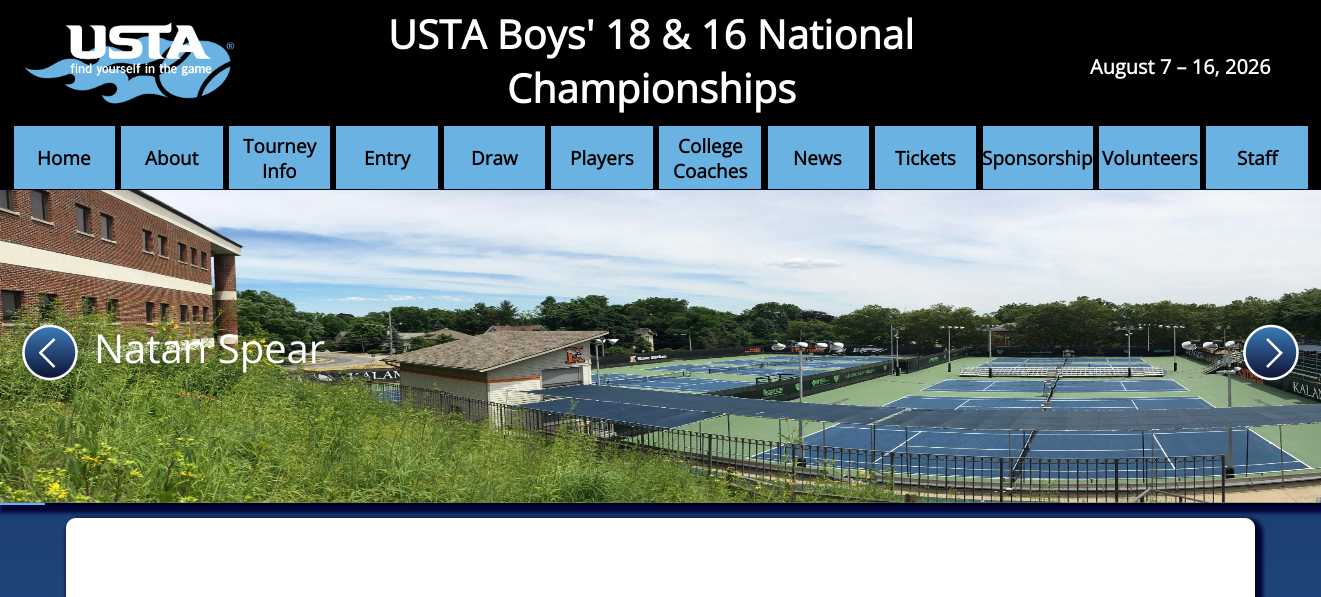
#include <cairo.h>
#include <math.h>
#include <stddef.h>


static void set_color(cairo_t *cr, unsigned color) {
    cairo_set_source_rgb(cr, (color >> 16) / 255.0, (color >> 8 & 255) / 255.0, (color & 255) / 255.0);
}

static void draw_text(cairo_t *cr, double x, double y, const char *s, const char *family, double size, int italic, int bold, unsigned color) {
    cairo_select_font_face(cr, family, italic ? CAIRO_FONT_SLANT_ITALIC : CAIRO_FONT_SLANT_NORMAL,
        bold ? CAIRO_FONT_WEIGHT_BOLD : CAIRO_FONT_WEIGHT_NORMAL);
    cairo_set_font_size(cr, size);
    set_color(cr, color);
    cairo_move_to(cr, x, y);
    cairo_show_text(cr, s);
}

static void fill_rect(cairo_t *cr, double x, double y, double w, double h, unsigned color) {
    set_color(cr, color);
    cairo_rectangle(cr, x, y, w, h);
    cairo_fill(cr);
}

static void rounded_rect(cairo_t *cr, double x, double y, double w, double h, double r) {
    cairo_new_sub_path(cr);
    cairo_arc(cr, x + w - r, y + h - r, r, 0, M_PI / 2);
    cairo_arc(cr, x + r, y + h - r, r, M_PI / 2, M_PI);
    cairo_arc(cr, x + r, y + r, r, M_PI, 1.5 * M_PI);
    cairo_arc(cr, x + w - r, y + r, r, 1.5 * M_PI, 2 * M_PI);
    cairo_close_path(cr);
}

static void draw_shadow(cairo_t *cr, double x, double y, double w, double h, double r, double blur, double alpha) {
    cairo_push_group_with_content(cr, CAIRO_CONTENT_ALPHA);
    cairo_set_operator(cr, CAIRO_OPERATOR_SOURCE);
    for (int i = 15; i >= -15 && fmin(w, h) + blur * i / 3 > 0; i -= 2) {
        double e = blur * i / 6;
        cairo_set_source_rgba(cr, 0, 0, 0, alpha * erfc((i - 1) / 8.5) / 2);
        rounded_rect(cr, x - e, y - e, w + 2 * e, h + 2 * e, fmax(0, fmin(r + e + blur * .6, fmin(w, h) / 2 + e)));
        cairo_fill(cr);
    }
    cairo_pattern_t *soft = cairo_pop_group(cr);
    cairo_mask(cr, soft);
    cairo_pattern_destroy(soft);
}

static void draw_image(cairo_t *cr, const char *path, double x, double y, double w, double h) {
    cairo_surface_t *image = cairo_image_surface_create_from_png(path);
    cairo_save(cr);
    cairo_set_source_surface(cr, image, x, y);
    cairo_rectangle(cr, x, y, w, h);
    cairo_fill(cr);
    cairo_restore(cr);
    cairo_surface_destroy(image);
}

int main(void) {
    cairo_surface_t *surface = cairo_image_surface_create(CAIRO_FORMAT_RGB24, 1321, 597);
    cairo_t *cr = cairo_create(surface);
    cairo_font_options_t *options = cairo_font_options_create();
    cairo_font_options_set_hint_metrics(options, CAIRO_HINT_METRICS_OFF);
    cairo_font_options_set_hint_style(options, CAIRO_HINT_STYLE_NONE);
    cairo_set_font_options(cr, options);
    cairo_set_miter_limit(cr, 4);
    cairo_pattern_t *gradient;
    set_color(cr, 0xFFFFFF);
    cairo_paint(cr);
    gradient = cairo_pattern_create_linear(661, 0, 661, 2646);
    cairo_pattern_add_color_stop_rgba(gradient, 0.09, 0, 0, 0, 1);
    cairo_pattern_add_color_stop_rgba(gradient, 0.14, 0.008, 0.008, 0.208, 1);
    cairo_pattern_add_color_stop_rgba(gradient, 0.19, 0.11, 0.247, 0.451, 1);
    cairo_pattern_add_color_stop_rgba(gradient, 0.59, 0.231, 0.49, 0.722, 1);
    cairo_pattern_add_color_stop_rgba(gradient, 1, 0.6, 0.792, 0.929, 1);
    cairo_set_source(cr, gradient);
    cairo_pattern_destroy(gradient);
    cairo_rectangle(cr, 0, 0, 1321, 597);
    cairo_fill(cr);
    draw_image(cr, "assets/img1.png", 24, 22, 211, 82);
    draw_text(cr, 388, 49, "USTA Boys' 18 & 16 National", "Open Sans", 40, 0, 1, 0xFFFFFF);
    draw_text(cr, 507, 103, "Championships", "Open Sans", 40, 0, 1, 0xFFFFFF);
    draw_text(cr, 1090, 74, "August 7 – 16, 2026", "Open Sans", 20, 0, 1, 0xFFFFFF);
    set_color(cr, 0x020235);
    draw_shadow(cr, 0, 190, 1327, 323, 0, 2, 1);
    fill_rect(cr, 14, 126, 101, 63, 0x6AB2E2);
    draw_text(cr, 37, 165, "Home", "Open Sans", 19, 0, 1, 0x000000);
    fill_rect(cr, 121, 126, 102, 63, 0x6AB2E2);
    draw_text(cr, 145, 165, "About", "Open Sans", 19, 0, 1, 0x000000);
    fill_rect(cr, 229, 126, 101, 63, 0x6AB2E2);
    draw_text(cr, 243, 153, "Tourney", "Open Sans", 19, 0, 1, 0x000000);
    draw_text(cr, 262, 178, "Info", "Open Sans", 19, 0, 1, 0x000000);
    fill_rect(cr, 336, 126, 102, 63, 0x6AB2E2);
    draw_text(cr, 364, 165, "Entry", "Open Sans", 19, 0, 1, 0x000000);
    fill_rect(cr, 444, 126, 101, 63, 0x6AB2E2);
    draw_text(cr, 471, 165, "Draw", "Open Sans", 19, 0, 1, 0x000000);
    fill_rect(cr, 551, 126, 102, 63, 0x6AB2E2);
    draw_text(cr, 570, 165, "Players", "Open Sans", 19, 0, 1, 0x000000);
    fill_rect(cr, 659, 126, 102, 63, 0x6AB2E2);
    draw_text(cr, 678, 153, "College", "Open Sans", 19, 0, 1, 0x000000);
    draw_text(cr, 673, 178, "Coaches", "Open Sans", 19, 0, 1, 0x000000);
    fill_rect(cr, 768, 126, 101, 63, 0x6AB2E2);
    draw_text(cr, 793, 165, "News", "Open Sans", 19, 0, 1, 0x000000);
    fill_rect(cr, 875, 126, 101, 63, 0x6AB2E2);
    draw_text(cr, 895, 165, "Tickets", "Open Sans", 19, 0, 1, 0x000000);
    fill_rect(cr, 983, 126, 110, 63, 0x6AB2E2);
    draw_text(cr, 982, 165, "Sponsorship", "Open Sans", 19, 0, 1, 0x000000);
    fill_rect(cr, 1099, 126, 101, 63, 0x6AB2E2);
    draw_text(cr, 1102, 165, "Volunteers", "Open Sans", 19, 0, 1, 0x000000);
    fill_rect(cr, 1206, 126, 102, 63, 0x6AB2E2);
    draw_text(cr, 1237, 165, "Staff", "Open Sans", 19, 0, 1, 0x000000);
    gradient = cairo_pattern_create_linear(661, 190, 661, 505);
    cairo_pattern_add_color_stop_rgba(gradient, 0, 0.231, 0.49, 0.722, 1);
    cairo_pattern_add_color_stop_rgba(gradient, 0.5, 1, 1, 1, 1);
    cairo_pattern_add_color_stop_rgba(gradient, 1, 0.231, 0.49, 0.722, 1);
    cairo_set_source(cr, gradient);
    cairo_pattern_destroy(gradient);
    cairo_rectangle(cr, 0, 502, 1321, 1);
    cairo_fill(cr);
    draw_image(cr, "assets/img2.png", 0, 190, 1321, 313);
    gradient = cairo_pattern_create_linear(50, 326, 50, 379);
    cairo_pattern_add_color_stop_rgba(gradient, 0, 0.231, 0.49, 0.722, 1);
    cairo_pattern_add_color_stop_rgba(gradient, 1, 0.055, 0.067, 0.2, 1);
    cairo_set_source(cr, gradient);
    cairo_pattern_destroy(gradient);
    cairo_arc(cr, 50, 352.5, 26.5, 0, 2 * M_PI);
    cairo_fill_preserve(cr);
    set_color(cr, 0xFFFFFF);
    cairo_set_line_width(cr, 2.5);
    cairo_stroke(cr);
    cairo_new_path(cr);
    cairo_move_to(cr, 54.5, 339);
    cairo_line_to(cr, 40, 353);
    cairo_move_to(cr, 54.5, 367);
    cairo_line_to(cr, 39.5, 352);
    cairo_stroke(cr);
    gradient = cairo_pattern_create_linear(1271, 326, 1271, 379);
    cairo_pattern_add_color_stop_rgba(gradient, 0, 0.231, 0.49, 0.722, 1);
    cairo_pattern_add_color_stop_rgba(gradient, 1, 0.055, 0.067, 0.2, 1);
    cairo_set_source(cr, gradient);
    cairo_pattern_destroy(gradient);
    cairo_arc(cr, 1271, 352.5, 26.5, 0, 2 * M_PI);
    cairo_fill_preserve(cr);
    set_color(cr, 0xFFFFFF);
    cairo_stroke(cr);
    cairo_new_path(cr);
    cairo_move_to(cr, 1267, 339);
    cairo_line_to(cr, 1281, 353);
    cairo_move_to(cr, 1267, 367);
    cairo_line_to(cr, 1282, 352);
    cairo_stroke(cr);
    draw_text(cr, 94, 363, "Natan Spear", "Open Sans", 40, 0, 0, 0xFFFFFF);
    fill_rect(cr, 0, 503, 45, 2, 0x6AB2E2);
    fill_rect(cr, 45, 503, 1276, 2, 0x000000);
    set_color(cr, 0x020235);
    draw_shadow(cr, 66, 518, 1197, 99, 14, 2, 1);
    set_color(cr, 0xFFFFFF);
    cairo_new_path(cr);
    cairo_move_to(cr, 76, 518);
    cairo_line_to(cr, 1245, 518);
    cairo_curve_to(cr, 1250.5, 518, 1255, 522.5, 1255, 528);
    cairo_line_to(cr, 1255, 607);
    cairo_line_to(cr, 66, 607);
    cairo_line_to(cr, 66, 528);
    cairo_curve_to(cr, 66, 522.5, 70.5, 518, 76, 518);
    cairo_close_path(cr);
    cairo_fill(cr);
    cairo_surface_write_to_png(surface, "output.png");
    cairo_font_options_destroy(options);
    cairo_destroy(cr);
    cairo_surface_destroy(surface);
    return 0;
}
